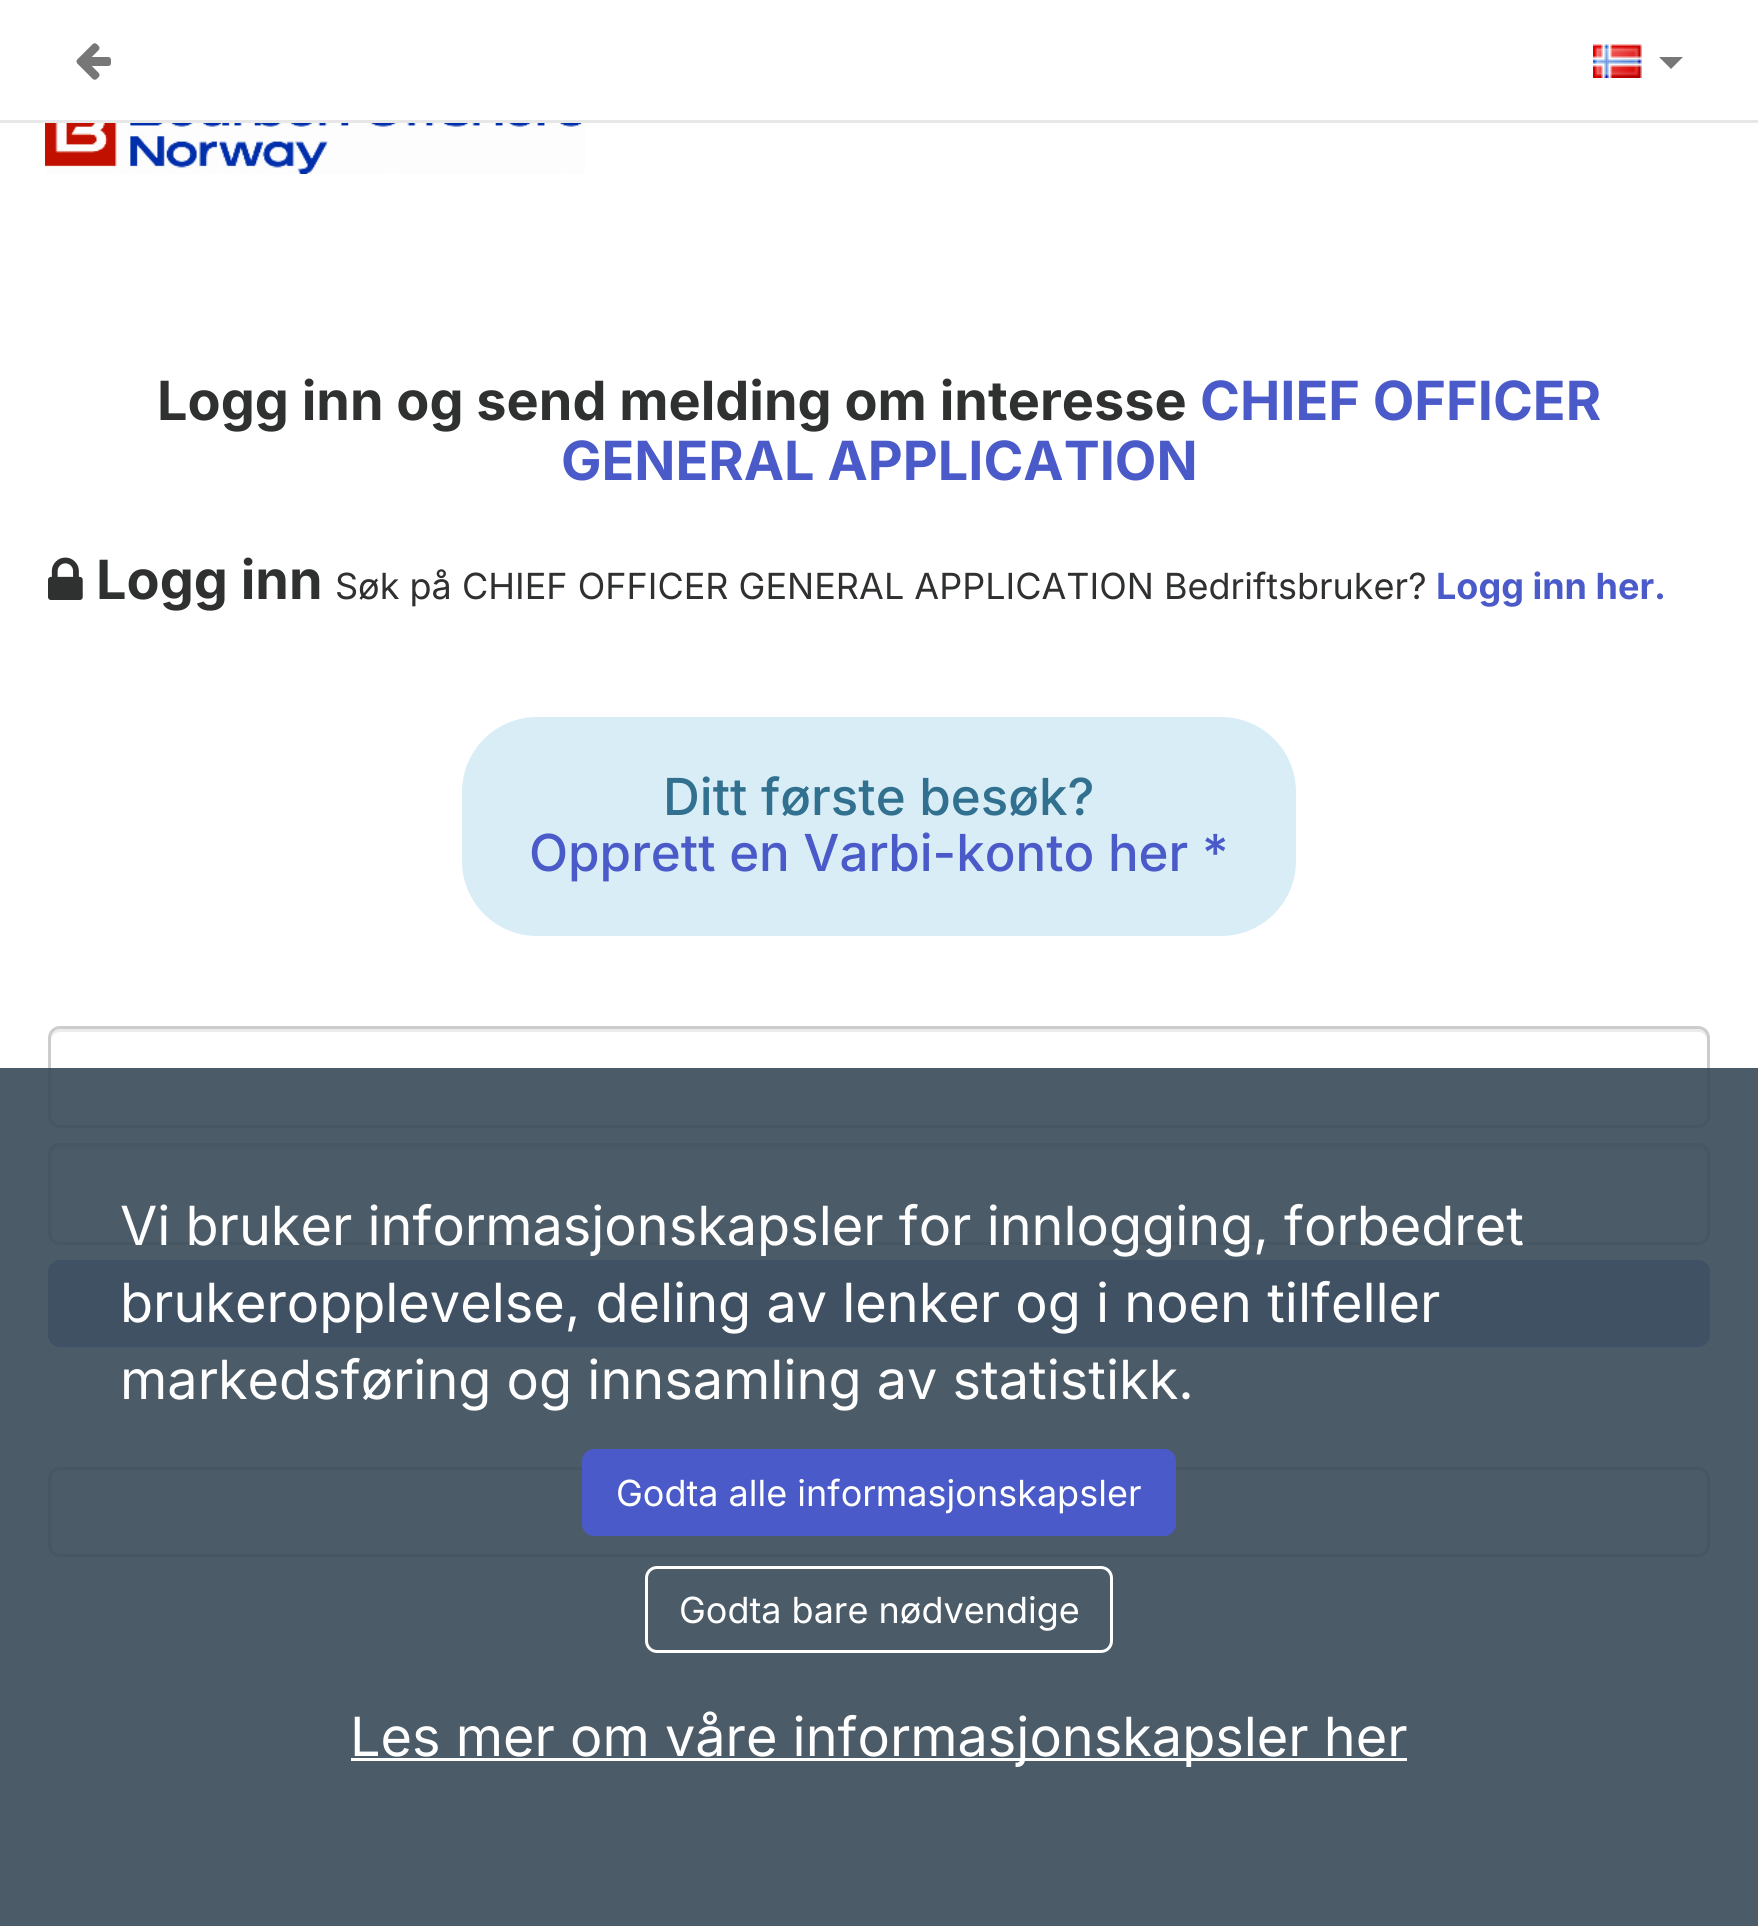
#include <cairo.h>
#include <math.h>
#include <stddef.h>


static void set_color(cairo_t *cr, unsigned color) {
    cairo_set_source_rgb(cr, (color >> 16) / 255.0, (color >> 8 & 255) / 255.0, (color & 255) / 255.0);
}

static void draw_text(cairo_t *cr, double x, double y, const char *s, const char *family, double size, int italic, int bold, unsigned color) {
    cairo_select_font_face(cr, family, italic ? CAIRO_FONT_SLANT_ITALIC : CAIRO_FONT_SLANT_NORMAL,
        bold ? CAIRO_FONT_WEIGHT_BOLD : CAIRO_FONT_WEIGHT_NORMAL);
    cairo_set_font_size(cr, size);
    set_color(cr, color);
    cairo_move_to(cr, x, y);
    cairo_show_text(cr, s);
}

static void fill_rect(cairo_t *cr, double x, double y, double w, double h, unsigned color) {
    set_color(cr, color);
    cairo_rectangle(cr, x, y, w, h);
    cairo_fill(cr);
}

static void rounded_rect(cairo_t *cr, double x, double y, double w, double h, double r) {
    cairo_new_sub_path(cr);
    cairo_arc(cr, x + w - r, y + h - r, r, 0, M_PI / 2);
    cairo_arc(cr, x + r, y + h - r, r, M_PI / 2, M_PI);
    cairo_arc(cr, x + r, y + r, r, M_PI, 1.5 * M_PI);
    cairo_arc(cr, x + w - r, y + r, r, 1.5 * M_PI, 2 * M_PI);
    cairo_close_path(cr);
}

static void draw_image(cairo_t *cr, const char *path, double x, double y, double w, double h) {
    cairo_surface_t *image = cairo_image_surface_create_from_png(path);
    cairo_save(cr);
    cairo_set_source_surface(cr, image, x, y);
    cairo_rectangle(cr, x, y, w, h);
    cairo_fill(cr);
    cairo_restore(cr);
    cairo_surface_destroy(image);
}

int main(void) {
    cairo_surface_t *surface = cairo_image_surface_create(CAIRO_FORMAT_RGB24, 1758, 1926);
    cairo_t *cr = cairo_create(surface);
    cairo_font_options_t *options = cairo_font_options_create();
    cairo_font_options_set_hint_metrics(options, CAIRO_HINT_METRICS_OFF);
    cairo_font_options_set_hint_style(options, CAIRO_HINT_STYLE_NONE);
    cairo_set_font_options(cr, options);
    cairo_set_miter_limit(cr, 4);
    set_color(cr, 0xFFFFFF);
    cairo_paint(cr);
    fill_rect(cr, 0, 120, 1758, 3, 0xE7E7E7);
    draw_image(cr, "assets/img1.png", 76, 43, 35, 37);
    draw_image(cr, "assets/img2.png", 1593, 44, 49, 34);
    set_color(cr, 0x777777);
    cairo_new_path(cr);
    cairo_move_to(cr, 1659, 57);
    cairo_line_to(cr, 1683, 57);
    cairo_line_to(cr, 1671, 69);
    cairo_close_path(cr);
    cairo_fill(cr);
    draw_image(cr, "assets/img3.png", 45, 123, 540, 51);
    draw_text(cr, 157, 420, "Logg inn og send melding om interesse", "Inter", 54, 0, 1, 0x2F3030);
    draw_text(cr, 1200, 420, "CHIEF OFFICER", "Inter", 54, 0, 1, 0x4A5BC9);
    draw_text(cr, 561, 480, "GENERAL APPLICATION", "Inter", 54, 0, 1, 0x4A5BC9);
    draw_image(cr, "assets/img4.png", 48, 557, 35, 43);
    draw_text(cr, 96, 599, "Logg inn", "Inter", 54, 0, 1, 0x2F3030);
    draw_text(cr, 335, 599, "Søk på CHIEF OFFICER GENERAL APPLICATION Bedriftsbruker?", "Inter", 36, 0, 0, 0x2F3030);
    draw_text(cr, 1436, 599, "Logg inn her.", "Inter", 36, 0, 1, 0x4A5BC9);
    set_color(cr, 0xD9EDF7);
    rounded_rect(cr, 462, 717, 834, 219, 75);
    cairo_fill(cr);
    draw_text(cr, 663, 815, "Ditt første besøk?", "Inter Medium", 51, 0, 0, 0x31708F);
    draw_text(cr, 529, 871, "Opprett en Varbi-konto her *", "Inter Medium", 51, 0, 0, 0x4A5BC9);
    set_color(cr, 0xECECEC);
    cairo_new_path(cr);
    cairo_move_to(cr, 60, 1032);
    cairo_line_to(cr, 1698, 1032);
    cairo_curve_to(cr, 1703, 1032, 1707, 1036, 1707, 1041);
    cairo_line_to(cr, 1707, 1038);
    cairo_curve_to(cr, 1707, 1033, 1703, 1029, 1698, 1029);
    cairo_line_to(cr, 60, 1029);
    cairo_curve_to(cr, 55, 1029, 51, 1033, 51, 1038);
    cairo_line_to(cr, 51, 1041);
    cairo_curve_to(cr, 51, 1036, 55, 1032, 60, 1032);
    cairo_close_path(cr);
    cairo_fill(cr);
    rounded_rect(cr, 49.5, 1027.5, 1659, 99, 10.5);
    set_color(cr, 0xCCCCCC);
    cairo_set_line_width(cr, 3);
    cairo_stroke(cr);
    set_color(cr, 0xECECEC);
    cairo_new_path(cr);
    cairo_move_to(cr, 60, 1149);
    cairo_line_to(cr, 1698, 1149);
    cairo_curve_to(cr, 1703, 1149, 1707, 1153, 1707, 1158);
    cairo_line_to(cr, 1707, 1155);
    cairo_curve_to(cr, 1707, 1150, 1703, 1146, 1698, 1146);
    cairo_line_to(cr, 60, 1146);
    cairo_curve_to(cr, 55, 1146, 51, 1150, 51, 1155);
    cairo_line_to(cr, 51, 1158);
    cairo_curve_to(cr, 51, 1153, 55, 1149, 60, 1149);
    cairo_close_path(cr);
    cairo_fill(cr);
    rounded_rect(cr, 49.5, 1144.5, 1659, 99, 10.5);
    set_color(cr, 0xCCCCCC);
    cairo_stroke(cr);
    set_color(cr, 0x8A95DC);
    rounded_rect(cr, 49.5, 1261.5, 1659, 84, 10.5);
    cairo_fill_preserve(cr);
    set_color(cr, 0x8994DC);
    cairo_stroke(cr);
    rounded_rect(cr, 49.5, 1468.5, 1659, 87, 10.5);
    set_color(cr, 0xCCCCCC);
    cairo_stroke(cr);
    cairo_set_source_rgba(cr, 0.22, 0.29, 0.341, 0.9);
    cairo_rectangle(cr, 0, 1068, 1758, 858);
    cairo_fill(cr);
    draw_text(cr, 120, 1245, "Vi bruker informasjonskapsler for innlogging, forbedret", "Inter", 54, 0, 0, 0xFFFFFF);
    draw_text(cr, 120, 1322, "brukeropplevelse, deling av lenker og i noen tilfeller", "Inter", 54, 0, 0, 0xFFFFFF);
    draw_text(cr, 120, 1399, "markedsføring og innsamling av statistikk.", "Inter", 54, 0, 0, 0xFFFFFF);
    set_color(cr, 0x4A5BC9);
    rounded_rect(cr, 583.5, 1450.5, 591, 84, 10.5);
    cairo_fill_preserve(cr);
    cairo_stroke(cr);
    draw_text(cr, 616, 1506, "Godta alle informasjonskapsler", "Inter", 36, 0, 0, 0xFFFFFF);
    rounded_rect(cr, 646.5, 1567.5, 465, 84, 10.5);
    cairo_stroke(cr);
    draw_text(cr, 679, 1623, "Godta bare nødvendige", "Inter", 36, 0, 0, 0xFFFFFF);
    fill_rect(cr, 351, 1758, 1056, 3, 0xFFFFFF);
    draw_text(cr, 350, 1756, "Les mer om våre informasjonskapsler her", "Inter", 54, 0, 0, 0xFFFFFF);
    cairo_surface_write_to_png(surface, "output.png");
    cairo_font_options_destroy(options);
    cairo_destroy(cr);
    cairo_surface_destroy(surface);
    return 0;
}
